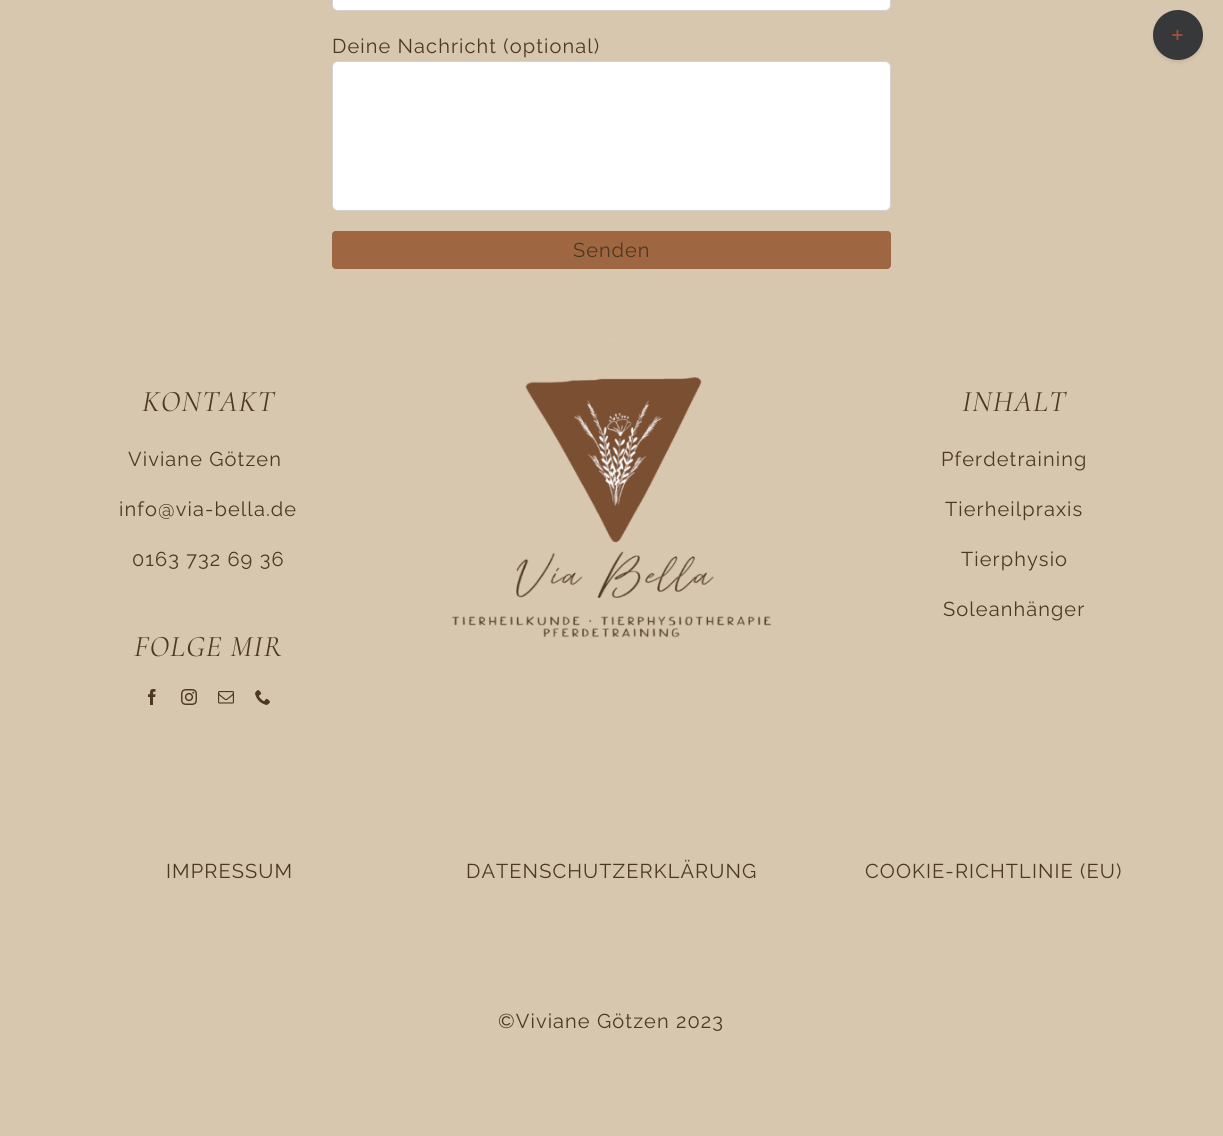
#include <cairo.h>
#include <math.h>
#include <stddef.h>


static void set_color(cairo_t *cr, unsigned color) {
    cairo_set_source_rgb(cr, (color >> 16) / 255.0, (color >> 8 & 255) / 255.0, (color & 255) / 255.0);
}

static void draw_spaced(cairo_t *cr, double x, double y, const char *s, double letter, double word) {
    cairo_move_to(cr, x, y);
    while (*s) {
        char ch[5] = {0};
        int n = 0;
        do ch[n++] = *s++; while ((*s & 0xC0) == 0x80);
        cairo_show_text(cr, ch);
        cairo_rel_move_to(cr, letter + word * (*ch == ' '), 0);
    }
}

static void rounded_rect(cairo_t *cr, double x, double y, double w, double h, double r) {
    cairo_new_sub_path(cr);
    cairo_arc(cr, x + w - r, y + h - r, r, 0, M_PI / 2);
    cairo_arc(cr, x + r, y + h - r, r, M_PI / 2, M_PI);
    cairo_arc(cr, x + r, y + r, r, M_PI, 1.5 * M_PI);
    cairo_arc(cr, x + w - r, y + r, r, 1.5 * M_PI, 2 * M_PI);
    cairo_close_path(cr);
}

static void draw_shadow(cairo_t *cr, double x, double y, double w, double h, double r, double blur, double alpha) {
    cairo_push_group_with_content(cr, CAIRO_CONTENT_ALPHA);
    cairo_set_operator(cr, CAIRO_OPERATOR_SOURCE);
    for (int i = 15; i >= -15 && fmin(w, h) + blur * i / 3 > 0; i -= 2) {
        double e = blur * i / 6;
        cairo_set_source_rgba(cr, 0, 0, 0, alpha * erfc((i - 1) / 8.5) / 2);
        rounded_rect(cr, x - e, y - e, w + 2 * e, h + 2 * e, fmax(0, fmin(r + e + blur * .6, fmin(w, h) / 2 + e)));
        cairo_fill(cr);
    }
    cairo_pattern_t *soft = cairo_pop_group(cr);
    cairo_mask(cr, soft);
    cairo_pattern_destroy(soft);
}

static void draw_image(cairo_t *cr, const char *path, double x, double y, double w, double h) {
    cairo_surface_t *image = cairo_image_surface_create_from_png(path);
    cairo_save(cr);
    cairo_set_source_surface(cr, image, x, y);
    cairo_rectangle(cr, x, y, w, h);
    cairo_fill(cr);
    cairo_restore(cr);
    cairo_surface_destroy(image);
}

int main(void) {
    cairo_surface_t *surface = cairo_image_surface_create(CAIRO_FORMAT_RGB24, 1223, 1136);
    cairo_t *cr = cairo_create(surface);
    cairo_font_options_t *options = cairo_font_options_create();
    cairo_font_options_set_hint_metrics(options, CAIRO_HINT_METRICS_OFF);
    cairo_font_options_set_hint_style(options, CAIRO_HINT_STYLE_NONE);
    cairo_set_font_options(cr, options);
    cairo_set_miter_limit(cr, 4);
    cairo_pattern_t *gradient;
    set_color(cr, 0xD8C7AF);
    cairo_paint(cr);
    set_color(cr, 0xFFFFFF);
    rounded_rect(cr, 332.5, -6.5, 558, 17, 5.5);
    cairo_fill_preserve(cr);
    set_color(cr, 0xD2D2D2);
    cairo_set_line_width(cr, 1);
    cairo_stroke(cr);
    cairo_select_font_face(cr, "Raleway", CAIRO_FONT_SLANT_NORMAL, CAIRO_FONT_WEIGHT_NORMAL);
    cairo_set_font_size(cr, 20);
    set_color(cr, 0x4D3821);
    draw_spaced(cr, 332, 53, "Deine Nachricht (optional)", 1.1, 0);
    set_color(cr, 0xFFFFFF);
    rounded_rect(cr, 332.5, 61.5, 558, 149, 5.5);
    cairo_fill_preserve(cr);
    set_color(cr, 0xD2D2D2);
    cairo_stroke(cr);
    set_color(cr, 0x9F6741);
    rounded_rect(cr, 332, 231, 559, 38, 4);
    cairo_fill(cr);
    gradient = cairo_pattern_create_linear(612, 231, 612, 269);
    cairo_pattern_add_color_stop_rgba(gradient, 0, 0.624, 0.404, 0.255, 1);
    cairo_pattern_add_color_stop_rgba(gradient, 1, 0.624, 0.404, 0.255, 0);
    cairo_set_source(cr, gradient);
    cairo_pattern_destroy(gradient);
    rounded_rect(cr, 332, 231, 559, 38, 4);
    cairo_fill(cr);
    set_color(cr, 0x4D3821);
    draw_spaced(cr, 573, 257, "Senden", 1, 0);
    cairo_select_font_face(cr, "Cormorant Garamond", CAIRO_FONT_SLANT_ITALIC, CAIRO_FONT_WEIGHT_NORMAL);
    cairo_set_font_size(cr, 30);
    draw_spaced(cr, 142, 411, "KONTAKT", 1, 0);
    cairo_select_font_face(cr, "Raleway", CAIRO_FONT_SLANT_NORMAL, CAIRO_FONT_WEIGHT_NORMAL);
    cairo_set_font_size(cr, 20);
    draw_spaced(cr, 128, 466, "Viviane Götzen", 1.1, 0);
    draw_spaced(cr, 119, 516, "info@via-bella.de", 1.1, 0);
    draw_spaced(cr, 132, 566, "0163 732 69 36", 1.1, 0);
    cairo_select_font_face(cr, "Cormorant Garamond", CAIRO_FONT_SLANT_ITALIC, CAIRO_FONT_WEIGHT_NORMAL);
    cairo_set_font_size(cr, 30);
    draw_spaced(cr, 134, 656, "FOLGE MIR", 1, 0);
    draw_image(cr, "assets/img1.png", 148, 689, 8, 16);
    draw_image(cr, "assets/img2.png", 181, 689, 16, 16);
    draw_image(cr, "assets/img3.png", 218, 691, 16, 13);
    draw_image(cr, "assets/img4.png", 255, 690, 15, 15);
    draw_image(cr, "assets/img5.png", 451, 340, 321, 298);
    draw_spaced(cr, 962, 411, "INHALT", 1, 0);
    cairo_select_font_face(cr, "Raleway", CAIRO_FONT_SLANT_NORMAL, CAIRO_FONT_WEIGHT_NORMAL);
    cairo_set_font_size(cr, 20);
    draw_spaced(cr, 941, 466, "Pferdetraining", 1.1, 0);
    draw_spaced(cr, 945, 516, "Tierheilpraxis", 1.1, 0);
    draw_spaced(cr, 961, 566, "Tierphysio", 1.1, 0);
    draw_spaced(cr, 943, 616, "Soleanhänger", 1.1, 0);
    draw_spaced(cr, 166, 878, "IMPRESSUM", 1.1, 0);
    draw_spaced(cr, 466, 878, "DATENSCHUTZERKLÄRUNG", 1.1, 0);
    draw_spaced(cr, 865, 878, "COOKIE-RICHTLINIE (EU)", 1.1, 0);
    draw_spaced(cr, 498, 1028, "©Viviane Götzen 2023", 1.1, 0);
    set_color(cr, 0x000000);
    draw_shadow(cr, 1155, 15, 46, 46, 23, 2.5, 0.14);
    set_color(cr, 0x363839);
    cairo_arc(cr, 1178, 35, 25, 0, 2 * M_PI);
    cairo_fill(cr);
    draw_image(cr, "assets/img6.png", 1172, 29, 11, 12);
    cairo_surface_write_to_png(surface, "output.png");
    cairo_font_options_destroy(options);
    cairo_destroy(cr);
    cairo_surface_destroy(surface);
    return 0;
}
